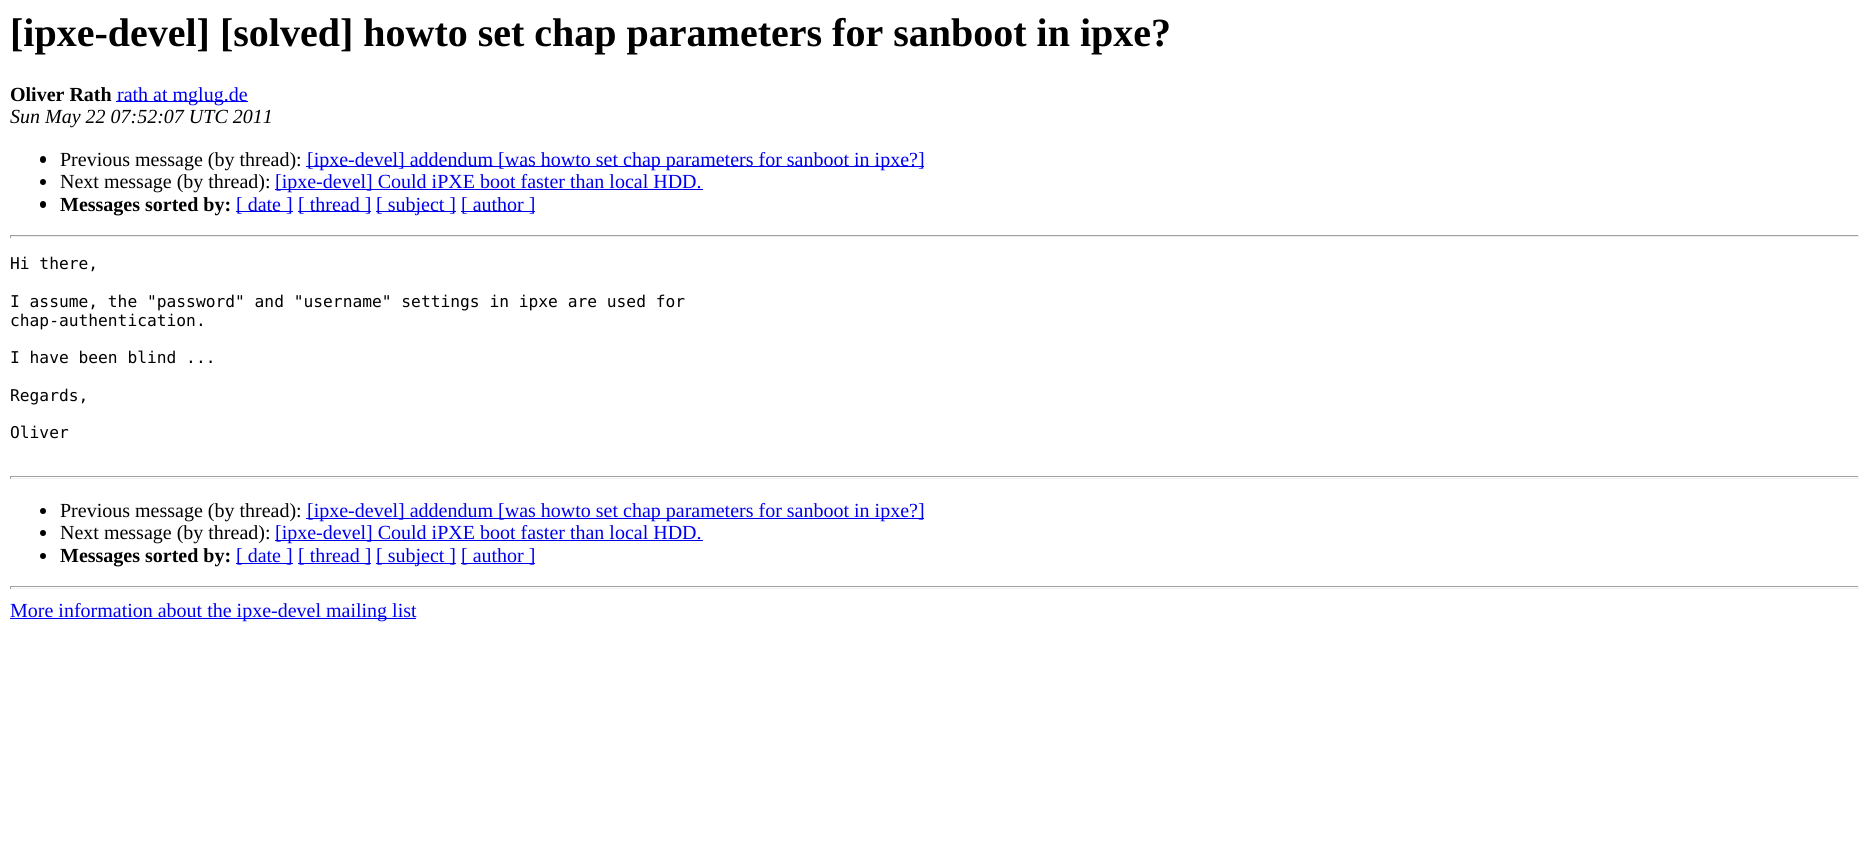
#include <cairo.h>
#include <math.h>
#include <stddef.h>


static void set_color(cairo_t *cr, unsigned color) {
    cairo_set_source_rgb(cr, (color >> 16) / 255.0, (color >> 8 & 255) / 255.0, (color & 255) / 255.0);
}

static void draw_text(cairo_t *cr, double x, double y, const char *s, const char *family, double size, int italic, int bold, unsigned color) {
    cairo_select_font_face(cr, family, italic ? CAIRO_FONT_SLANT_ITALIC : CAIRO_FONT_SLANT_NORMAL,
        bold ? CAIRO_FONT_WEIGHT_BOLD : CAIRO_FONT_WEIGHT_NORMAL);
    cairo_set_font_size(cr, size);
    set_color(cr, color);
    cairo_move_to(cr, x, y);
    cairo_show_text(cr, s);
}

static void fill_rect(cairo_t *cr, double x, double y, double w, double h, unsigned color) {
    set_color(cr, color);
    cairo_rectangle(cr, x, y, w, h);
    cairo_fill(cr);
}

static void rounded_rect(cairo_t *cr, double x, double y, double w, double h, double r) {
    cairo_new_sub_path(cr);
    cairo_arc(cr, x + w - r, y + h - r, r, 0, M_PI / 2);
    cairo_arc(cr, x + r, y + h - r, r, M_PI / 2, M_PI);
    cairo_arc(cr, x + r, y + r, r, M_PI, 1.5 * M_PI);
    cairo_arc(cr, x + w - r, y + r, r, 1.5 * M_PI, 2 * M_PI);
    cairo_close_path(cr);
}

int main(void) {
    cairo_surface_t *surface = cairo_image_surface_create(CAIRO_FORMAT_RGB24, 1868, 842);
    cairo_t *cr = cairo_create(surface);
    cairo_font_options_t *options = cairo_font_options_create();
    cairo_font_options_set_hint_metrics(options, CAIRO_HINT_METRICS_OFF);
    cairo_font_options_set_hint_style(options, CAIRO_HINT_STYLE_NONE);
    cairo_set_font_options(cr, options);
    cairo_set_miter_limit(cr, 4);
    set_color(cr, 0xFFFFFF);
    cairo_paint(cr);
    draw_text(cr, 10, 46, "[ipxe-devel] [solved] howto set chap parameters for sanboot in ipxe?", "Liberation Serif", 40, 0, 1, 0x000000);
    draw_text(cr, 10, 101, "Oliver Rath", "Liberation Serif", 20, 0, 1, 0x000000);
    fill_rect(cr, 116, 101, 132, 1, 0x0000EE);
    draw_text(cr, 117, 101, "rath at mglug.de", "Liberation Serif", 20, 0, 0, 0x0000EE);
    draw_text(cr, 10, 123, "Sun May 22 07:52:07 UTC 2011", "Liberation Serif", 20, 1, 0, 0x000000);
    rounded_rect(cr, 40, 156, 6, 7, 3);
    cairo_fill(cr);
    draw_text(cr, 60, 166, "Previous message (by thread):", "Liberation Serif", 20, 0, 0, 0x000000);
    fill_rect(cr, 306, 166, 618, 1, 0x0000EE);
    draw_text(cr, 307, 166, "[ipxe-devel] addendum [was howto set chap parameters for sanboot in ipxe?]", "Liberation Serif", 20, 0, 0, 0x0000EE);
    set_color(cr, 0x000000);
    cairo_new_path(cr);
    cairo_arc(cr, 43, 182, 3, 0, 2 * M_PI);
    cairo_fill(cr);
    draw_text(cr, 60, 188, "Next message (by thread):", "Liberation Serif", 20, 0, 0, 0x000000);
    fill_rect(cr, 275, 189, 428, 1, 0x0000EE);
    draw_text(cr, 275, 188, "[ipxe-devel] Could iPXE boot faster than local HDD.", "Liberation Serif", 20, 0, 0, 0x0000EE);
    set_color(cr, 0x000000);
    rounded_rect(cr, 40, 201, 6, 7, 3);
    cairo_fill(cr);
    draw_text(cr, 60, 211, "Messages sorted by:", "Liberation Serif", 20, 0, 1, 0x000000);
    fill_rect(cr, 236, 211, 57, 1, 0x0000EE);
    draw_text(cr, 236, 211, "[ date ]", "Liberation Serif", 20, 0, 0, 0x0000EE);
    fill_rect(cr, 298, 211, 73, 1, 0x0000EE);
    draw_text(cr, 298, 211, "[ thread ]", "Liberation Serif", 20, 0, 0, 0x0000EE);
    fill_rect(cr, 376, 211, 80, 1, 0x0000EE);
    draw_text(cr, 376, 211, "[ subject ]", "Liberation Serif", 20, 0, 0, 0x0000EE);
    fill_rect(cr, 461, 211, 74, 1, 0x0000EE);
    draw_text(cr, 461, 211, "[ author ]", "Liberation Serif", 20, 0, 0, 0x0000EE);
    fill_rect(cr, 10, 235, 1849, 1, 0x9F9F9F);
    fill_rect(cr, 1858, 235, 1, 3, 0xEEEEEE);
    fill_rect(cr, 10, 236, 1849, 1, 0xEEEEEE);
    fill_rect(cr, 10, 235, 1, 3, 0x9F9F9F);
    draw_text(cr, 10, 269, "Hi there,", "DejaVu Sans Mono", 16.25, 0, 0, 0x000000);
    draw_text(cr, 10, 307, "I assume, the \"password\" and \"username\" settings in ipxe are used for", "DejaVu Sans Mono", 16.25, 0, 0, 0x000000);
    draw_text(cr, 10, 326, "chap-authentication.", "DejaVu Sans Mono", 16.25, 0, 0, 0x000000);
    draw_text(cr, 10, 363, "I have been blind ...", "DejaVu Sans Mono", 16.25, 0, 0, 0x000000);
    draw_text(cr, 10, 401, "Regards,", "DejaVu Sans Mono", 16.25, 0, 0, 0x000000);
    draw_text(cr, 10, 438, "Oliver", "DejaVu Sans Mono", 16.25, 0, 0, 0x000000);
    fill_rect(cr, 10, 476, 1849, 1, 0x9F9F9F);
    fill_rect(cr, 1858, 476, 1, 3, 0xEEEEEE);
    fill_rect(cr, 10, 478, 1849, 1, 0xEEEEEE);
    fill_rect(cr, 10, 476, 1, 3, 0x9F9F9F);
    set_color(cr, 0x000000);
    cairo_new_path(cr);
    cairo_arc(cr, 43, 511, 3, 0, 2 * M_PI);
    cairo_fill(cr);
    draw_text(cr, 60, 517, "Previous message (by thread):", "Liberation Serif", 20, 0, 0, 0x000000);
    fill_rect(cr, 306, 518, 618, 1, 0x0000EE);
    draw_text(cr, 307, 517, "[ipxe-devel] addendum [was howto set chap parameters for sanboot in ipxe?]", "Liberation Serif", 20, 0, 0, 0x0000EE);
    set_color(cr, 0x000000);
    cairo_new_path(cr);
    cairo_arc(cr, 43, 533, 3, 0, 2 * M_PI);
    cairo_fill(cr);
    draw_text(cr, 60, 539, "Next message (by thread):", "Liberation Serif", 20, 0, 0, 0x000000);
    fill_rect(cr, 275, 540, 428, 1, 0x0000EE);
    draw_text(cr, 275, 539, "[ipxe-devel] Could iPXE boot faster than local HDD.", "Liberation Serif", 20, 0, 0, 0x0000EE);
    set_color(cr, 0x000000);
    cairo_new_path(cr);
    cairo_arc(cr, 43, 556, 3, 0, 2 * M_PI);
    cairo_fill(cr);
    draw_text(cr, 60, 562, "Messages sorted by:", "Liberation Serif", 20, 0, 1, 0x000000);
    fill_rect(cr, 236, 563, 57, 1, 0x0000EE);
    draw_text(cr, 236, 562, "[ date ]", "Liberation Serif", 20, 0, 0, 0x0000EE);
    fill_rect(cr, 298, 563, 73, 1, 0x0000EE);
    draw_text(cr, 298, 562, "[ thread ]", "Liberation Serif", 20, 0, 0, 0x0000EE);
    fill_rect(cr, 376, 563, 80, 1, 0x0000EE);
    draw_text(cr, 376, 562, "[ subject ]", "Liberation Serif", 20, 0, 0, 0x0000EE);
    fill_rect(cr, 461, 563, 74, 1, 0x0000EE);
    draw_text(cr, 461, 562, "[ author ]", "Liberation Serif", 20, 0, 0, 0x0000EE);
    fill_rect(cr, 10, 586, 1849, 1, 0x9F9F9F);
    fill_rect(cr, 1858, 586, 1, 3, 0xEEEEEE);
    fill_rect(cr, 10, 588, 1849, 1, 0xEEEEEE);
    fill_rect(cr, 10, 586, 1, 3, 0x9F9F9F);
    fill_rect(cr, 10, 618, 406, 1, 0x0000EE);
    draw_text(cr, 10, 617, "More information about the ipxe-devel mailing list", "Liberation Serif", 20, 0, 0, 0x0000EE);
    cairo_surface_write_to_png(surface, "output.png");
    cairo_font_options_destroy(options);
    cairo_destroy(cr);
    cairo_surface_destroy(surface);
    return 0;
}
